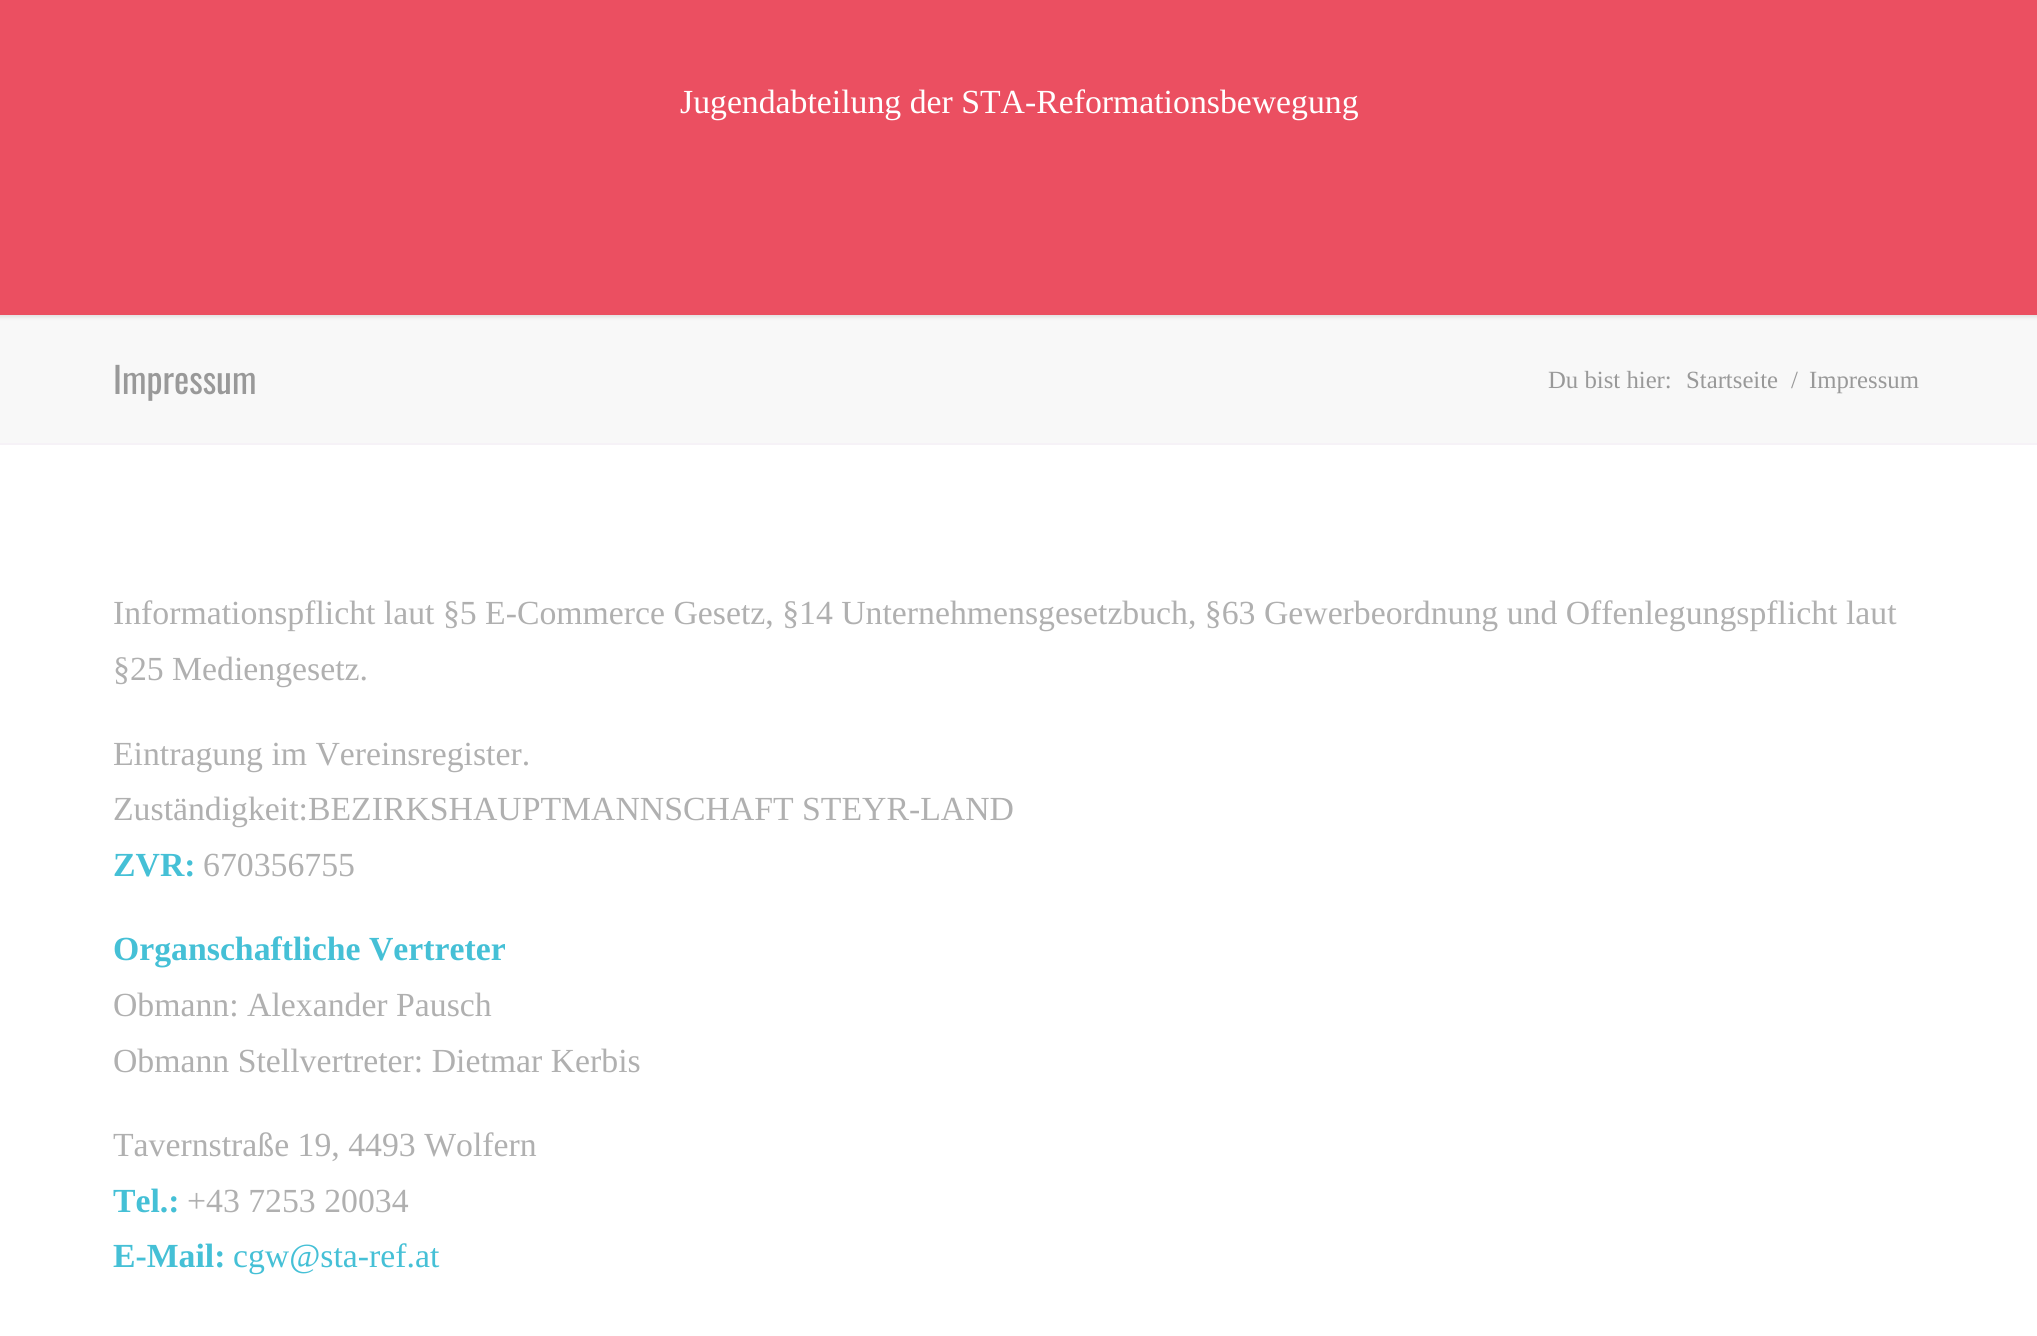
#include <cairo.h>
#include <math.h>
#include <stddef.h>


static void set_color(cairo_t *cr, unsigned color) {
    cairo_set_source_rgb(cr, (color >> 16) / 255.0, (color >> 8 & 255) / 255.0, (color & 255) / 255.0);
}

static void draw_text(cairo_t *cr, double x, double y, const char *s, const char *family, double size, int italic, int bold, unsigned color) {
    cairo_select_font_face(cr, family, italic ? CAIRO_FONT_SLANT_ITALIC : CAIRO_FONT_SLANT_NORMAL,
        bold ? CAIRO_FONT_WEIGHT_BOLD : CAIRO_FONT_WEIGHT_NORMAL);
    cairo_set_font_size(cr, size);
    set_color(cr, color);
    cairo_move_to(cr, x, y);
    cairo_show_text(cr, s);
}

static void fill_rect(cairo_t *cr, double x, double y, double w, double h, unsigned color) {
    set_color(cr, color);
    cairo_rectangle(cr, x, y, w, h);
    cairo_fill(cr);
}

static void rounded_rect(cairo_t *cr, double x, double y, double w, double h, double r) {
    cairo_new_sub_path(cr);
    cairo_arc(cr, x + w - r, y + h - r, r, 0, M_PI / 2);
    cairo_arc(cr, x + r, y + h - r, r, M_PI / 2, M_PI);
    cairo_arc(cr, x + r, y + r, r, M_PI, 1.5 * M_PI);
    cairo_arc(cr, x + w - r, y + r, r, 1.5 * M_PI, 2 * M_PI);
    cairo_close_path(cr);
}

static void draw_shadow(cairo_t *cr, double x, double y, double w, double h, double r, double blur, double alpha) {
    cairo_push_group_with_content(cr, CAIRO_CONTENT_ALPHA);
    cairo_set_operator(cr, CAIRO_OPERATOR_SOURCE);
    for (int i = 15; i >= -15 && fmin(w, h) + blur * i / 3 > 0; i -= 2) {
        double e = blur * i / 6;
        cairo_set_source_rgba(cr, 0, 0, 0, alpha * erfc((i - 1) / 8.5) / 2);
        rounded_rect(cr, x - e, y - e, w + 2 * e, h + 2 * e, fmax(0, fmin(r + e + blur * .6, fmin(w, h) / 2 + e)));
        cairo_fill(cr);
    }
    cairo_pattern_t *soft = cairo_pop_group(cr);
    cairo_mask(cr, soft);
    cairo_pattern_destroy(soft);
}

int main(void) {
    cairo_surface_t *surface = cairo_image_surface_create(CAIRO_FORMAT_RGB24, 2037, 1336);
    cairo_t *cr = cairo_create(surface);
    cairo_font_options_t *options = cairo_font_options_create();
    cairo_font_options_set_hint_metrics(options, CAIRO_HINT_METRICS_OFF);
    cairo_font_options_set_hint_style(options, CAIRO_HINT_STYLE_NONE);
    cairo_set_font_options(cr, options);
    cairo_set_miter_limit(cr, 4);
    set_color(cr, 0xF8F8F8);
    cairo_paint(cr);
    set_color(cr, 0x000000);
    draw_shadow(cr, -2, -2, 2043, 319, 0, 2, 0.1);
    fill_rect(cr, 0, 0, 2037, 315, 0xEB4F61);
    draw_text(cr, 680, 113, "Jugendabteilung der STA-Reformationsbewegung", "Liberation Serif", 33.75, 0, 0, 0xFFFFFF);
    draw_text(cr, 113, 394, "Impressum", "Oswald", 36, 0, 0, 0x999999);
    draw_text(cr, 1548, 388, "Du bist hier:", "Liberation Serif", 24.75, 0, 0, 0x999999);
    draw_text(cr, 1686, 388, "Startseite", "Liberation Serif", 24.75, 0, 0, 0x999999);
    draw_text(cr, 1791, 388, "/", "Liberation Serif", 24.75, 0, 0, 0x999999);
    draw_text(cr, 1809, 388, "Impressum", "Liberation Serif", 24.75, 0, 0, 0x999999);
    fill_rect(cr, 0, 445, 2037, 891, 0xFFFFFF);
    fill_rect(cr, 0, 443, 2037, 2, 0xF6F2F7);
    draw_text(cr, 113, 624, "Informationspflicht laut §5 E-Commerce Gesetz, §14 Unternehmensgesetzbuch, §63 Gewerbeordnung und Offenlegungspflicht laut", "Liberation Serif", 33.75, 0, 0, 0xB0B0B0);
    draw_text(cr, 113, 680, "§25 Mediengesetz.", "Liberation Serif", 33.75, 0, 0, 0xB0B0B0);
    draw_text(cr, 113, 765, "Eintragung im Vereinsregister.", "Liberation Serif", 33.75, 0, 0, 0xB0B0B0);
    draw_text(cr, 113, 820, "Zuständigkeit:BEZIRKSHAUPTMANNSCHAFT STEYR-LAND", "Liberation Serif", 33.75, 0, 0, 0xB0B0B0);
    draw_text(cr, 113, 876, "ZVR:", "Liberation Serif", 33.75, 0, 1, 0x45C0D6);
    draw_text(cr, 203, 876, "670356755", "Liberation Serif", 33.75, 0, 0, 0xB0B0B0);
    draw_text(cr, 113, 960, "Organschaftliche Vertreter", "Liberation Serif", 33.75, 0, 1, 0x45C0D6);
    draw_text(cr, 113, 1016, "Obmann: Alexander Pausch", "Liberation Serif", 33.75, 0, 0, 0xB0B0B0);
    draw_text(cr, 113, 1072, "Obmann Stellvertreter: Dietmar Kerbis", "Liberation Serif", 33.75, 0, 0, 0xB0B0B0);
    draw_text(cr, 113, 1156, "Tavernstraße 19, 4493 Wolfern", "Liberation Serif", 33.75, 0, 0, 0xB0B0B0);
    draw_text(cr, 113, 1212, "Tel.:", "Liberation Serif", 33.75, 0, 1, 0x45C0D6);
    draw_text(cr, 187, 1212, "+43 7253 20034", "Liberation Serif", 33.75, 0, 0, 0xB0B0B0);
    draw_text(cr, 113, 1267, "E-Mail:", "Liberation Serif", 33.75, 0, 1, 0x45C0D6);
    draw_text(cr, 233, 1267, "cgw@sta-ref.at", "Liberation Serif", 33.75, 0, 0, 0x45C0D6);
    cairo_surface_write_to_png(surface, "output.png");
    cairo_font_options_destroy(options);
    cairo_destroy(cr);
    cairo_surface_destroy(surface);
    return 0;
}
